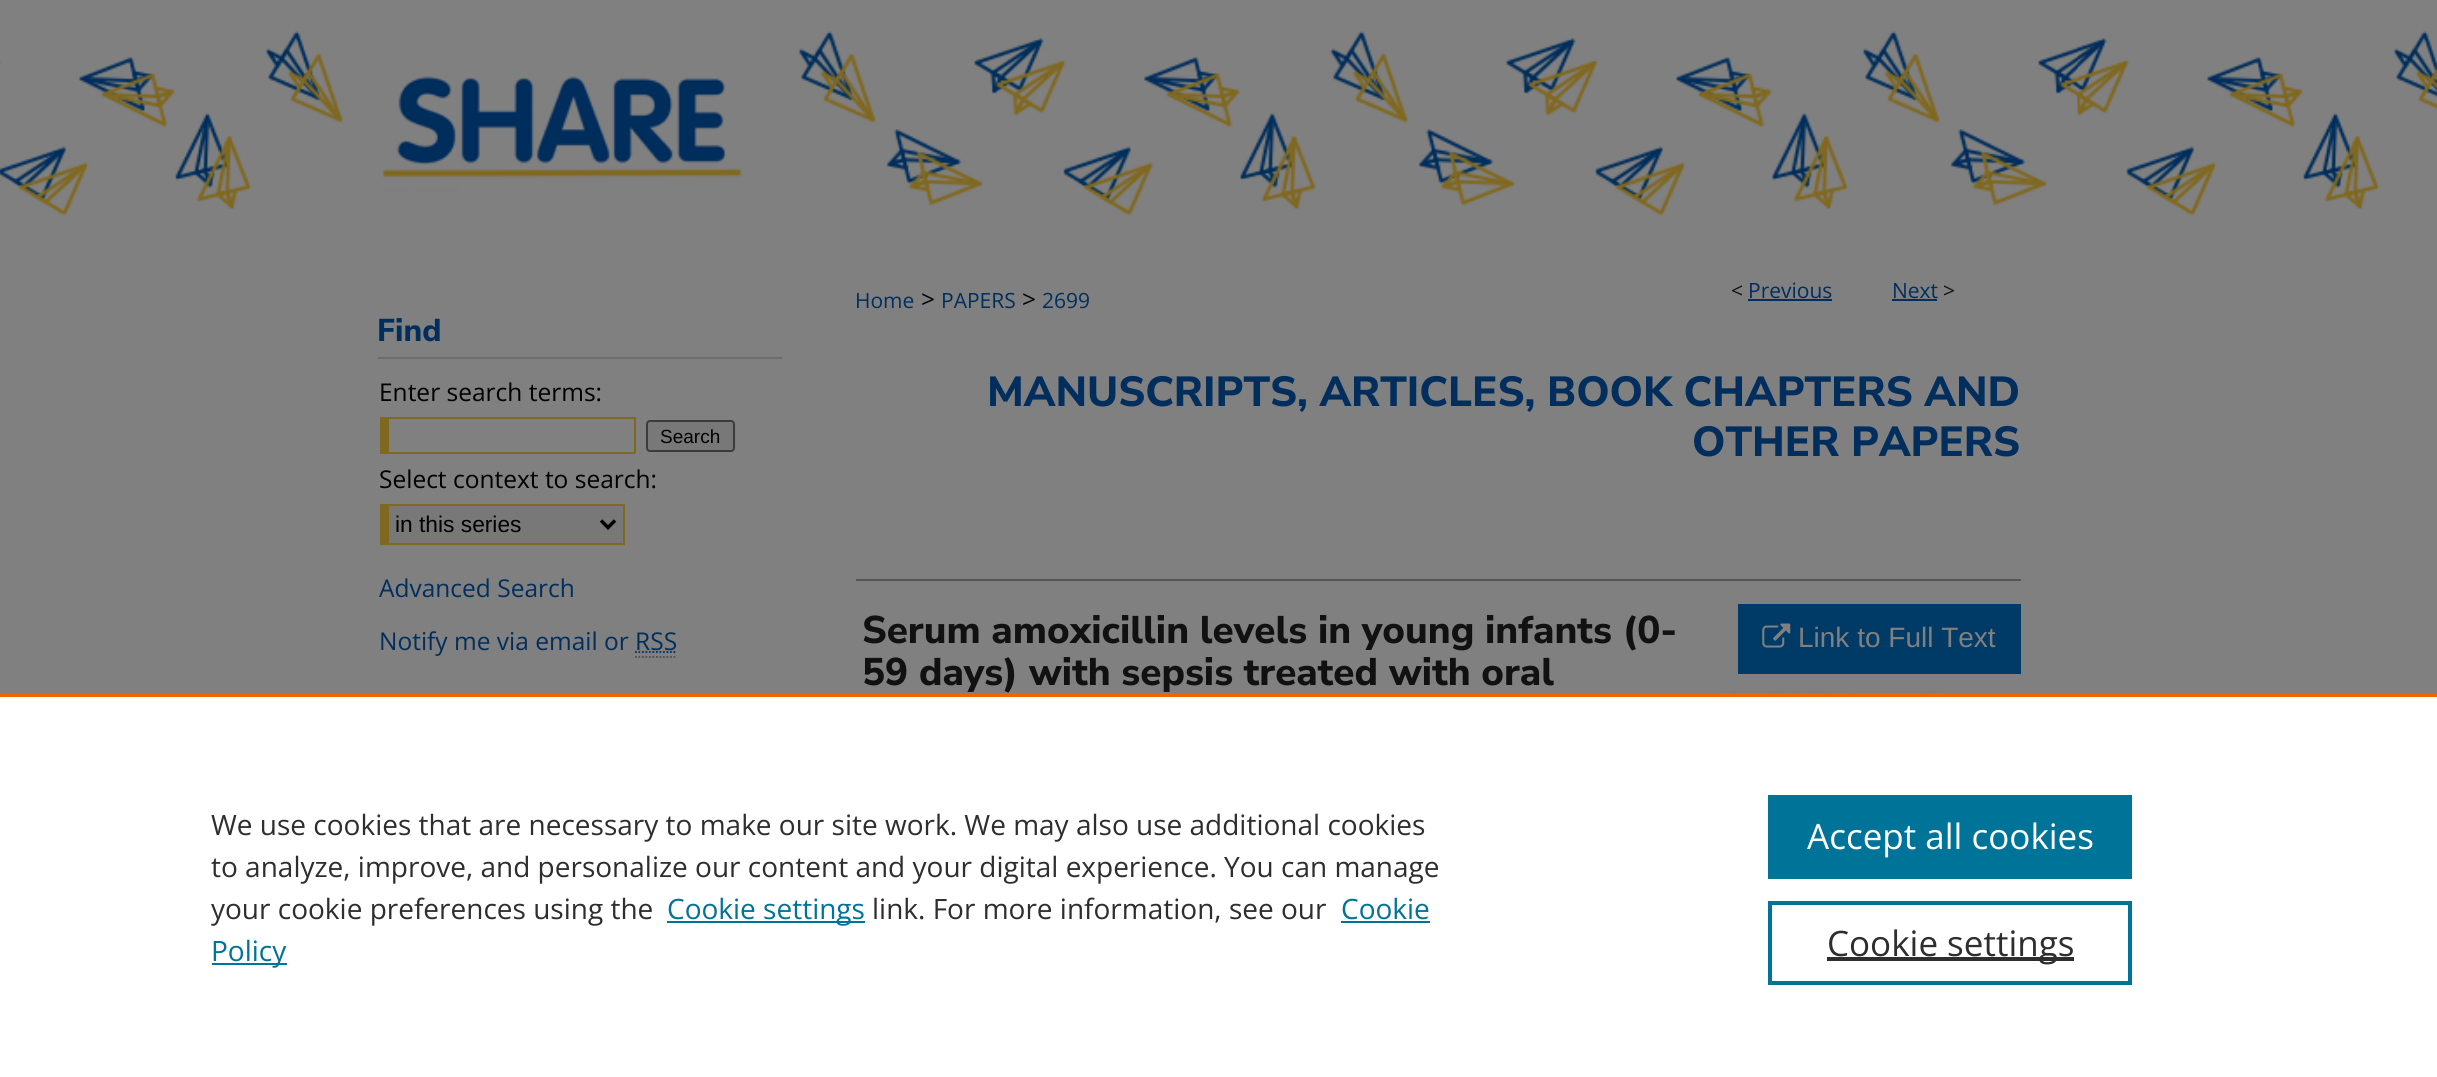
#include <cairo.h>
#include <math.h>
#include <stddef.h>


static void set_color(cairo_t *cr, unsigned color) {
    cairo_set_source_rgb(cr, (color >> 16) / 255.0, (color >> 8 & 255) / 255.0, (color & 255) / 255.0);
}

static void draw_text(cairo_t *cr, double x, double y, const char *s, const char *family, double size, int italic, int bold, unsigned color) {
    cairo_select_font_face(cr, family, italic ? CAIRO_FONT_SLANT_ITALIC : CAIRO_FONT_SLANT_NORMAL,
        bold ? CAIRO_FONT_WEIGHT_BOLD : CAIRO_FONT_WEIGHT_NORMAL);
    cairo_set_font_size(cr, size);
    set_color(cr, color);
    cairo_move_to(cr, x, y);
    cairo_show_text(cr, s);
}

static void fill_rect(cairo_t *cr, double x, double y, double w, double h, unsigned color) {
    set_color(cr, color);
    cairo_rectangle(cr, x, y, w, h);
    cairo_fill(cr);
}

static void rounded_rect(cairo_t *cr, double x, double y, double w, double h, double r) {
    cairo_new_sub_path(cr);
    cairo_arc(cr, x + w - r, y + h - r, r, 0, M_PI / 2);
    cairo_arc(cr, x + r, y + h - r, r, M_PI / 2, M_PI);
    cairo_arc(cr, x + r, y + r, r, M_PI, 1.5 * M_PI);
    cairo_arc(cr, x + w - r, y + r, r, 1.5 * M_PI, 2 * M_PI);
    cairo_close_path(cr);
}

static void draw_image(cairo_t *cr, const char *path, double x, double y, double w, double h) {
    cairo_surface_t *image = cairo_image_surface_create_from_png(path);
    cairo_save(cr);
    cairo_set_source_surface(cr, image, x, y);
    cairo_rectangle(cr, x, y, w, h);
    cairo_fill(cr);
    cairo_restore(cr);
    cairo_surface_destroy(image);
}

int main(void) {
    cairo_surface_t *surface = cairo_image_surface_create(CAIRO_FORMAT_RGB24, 2437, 1077);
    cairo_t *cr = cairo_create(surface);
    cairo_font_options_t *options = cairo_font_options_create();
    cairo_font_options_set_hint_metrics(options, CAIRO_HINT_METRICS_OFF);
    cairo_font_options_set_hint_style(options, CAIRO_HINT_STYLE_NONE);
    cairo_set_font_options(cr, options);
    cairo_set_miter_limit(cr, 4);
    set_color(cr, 0x808080);
    cairo_paint(cr);
    draw_image(cr, "assets/img1.png", 0, 31, 2437, 185);
    fill_rect(cr, 379, 31, 1698, 185, 0x808080);
    draw_image(cr, "assets/img2.png", 382, 31, 1696, 185);
    fill_rect(cr, 378, 357, 404, 2, 0x6E6E6E);
    draw_text(cr, 377, 341, "Find", "Nunito Sans ExtraBold", 31.5, 0, 0, 0x012E5D);
    draw_text(cr, 379, 401, "Enter search terms:", "Open Sans", 24.5, 0, 0, 0x000000);
    fill_rect(cr, 389, 417, 246, 2, 0x7F6921);
    fill_rect(cr, 634, 417, 2, 36, 0x7F6921);
    fill_rect(cr, 380, 452, 255, 2, 0x7F6921);
    fill_rect(cr, 380, 417, 9, 35, 0x7F6921);
    set_color(cr, 0x787878);
    rounded_rect(cr, 647, 421, 87, 30, 3);
    cairo_fill_preserve(cr);
    set_color(cr, 0x3B3B3B);
    cairo_stroke(cr);
    draw_text(cr, 660, 443, "Search", "Liberation Sans", 19, 0, 0, 0x000000);
    draw_text(cr, 379, 488, "Select context to search:", "Open Sans", 24.5, 0, 0, 0x000000);
    fill_rect(cr, 389, 506, 234, 37, 0x787878);
    fill_rect(cr, 389, 504, 236, 2, 0x7F6921);
    fill_rect(cr, 623, 504, 2, 40, 0x7F6921);
    fill_rect(cr, 380, 543, 245, 2, 0x7F6921);
    fill_rect(cr, 380, 504, 9, 39, 0x7F6921);
    cairo_new_path(cr);
    cairo_move_to(cr, 601, 520.5);
    cairo_line_to(cr, 608, 527.5);
    cairo_line_to(cr, 615, 520.5);
    set_color(cr, 0x000000);
    cairo_set_line_width(cr, 3.5);
    cairo_stroke(cr);
    draw_text(cr, 395, 532, "in this series", "Liberation Sans", 22.75, 0, 0, 0x000000);
    draw_text(cr, 379, 597, "Advanced Search", "Open Sans", 24.5, 0, 0, 0x012E5D);
    draw_text(cr, 379, 650, "Notify me via email or RSS", "Open Sans", 24.5, 0, 0, 0x012E5D);
    cairo_new_path(cr);
    cairo_move_to(cr, 635, 652);
    cairo_line_to(cr, 677, 652);
    cairo_set_line_width(cr, 1.8);
    cairo_set_dash(cr, (double[]){1.75, 1.75}, 2, 0);
    cairo_stroke(cr);
    cairo_new_path(cr);
    cairo_move_to(cr, 635, 657);
    cairo_line_to(cr, 677, 657);
    set_color(cr, 0x4D4D4D);
    cairo_stroke(cr);
    draw_text(cr, 855, 308, "Home", "Open Sans", 21, 0, 0, 0x012E5D);
    draw_text(cr, 921, 308, ">", "Open Sans", 24.5, 0, 0, 0x000000);
    draw_text(cr, 941, 308, "PAPERS", "Open Sans", 21, 0, 0, 0x012E5D);
    draw_text(cr, 1022, 308, ">", "Open Sans", 24.5, 0, 0, 0x000000);
    draw_text(cr, 1042, 308, "2699", "Open Sans", 21, 0, 0, 0x012E5D);
    draw_text(cr, 1731, 298, "<", "Open Sans", 21, 0, 0, 0x111111);
    draw_text(cr, 1748, 298, "Previous", "Open Sans", 21, 0, 0, 0x012E5D);
    fill_rect(cr, 1748, 299, 84, 2, 0x012E5D);
    draw_text(cr, 1892, 298, "Next", "Open Sans", 21, 0, 0, 0x012E5D);
    fill_rect(cr, 1892, 299, 45, 2, 0x012E5D);
    draw_text(cr, 1943, 298, ">", "Open Sans", 21, 0, 0, 0x111111);
    draw_text(cr, 987, 406, "MANUSCRIPTS, ARTICLES, BOOK CHAPTERS AND", "Nunito Sans ExtraBold", 42, 0, 0, 0x012E5D);
    draw_text(cr, 1692, 456, "OTHER PAPERS", "Nunito Sans ExtraBold", 42, 0, 0, 0x012E5D);
    fill_rect(cr, 856, 579, 1165, 2, 0x555555);
    draw_text(cr, 862, 643, "Serum amoxicillin levels in young infants (0-", "Nunito Sans ExtraBold", 38.5, 0, 0, 0x111111);
    draw_text(cr, 862, 685, "59 days) with sepsis treated with oral", "Nunito Sans ExtraBold", 38.5, 0, 0, 0x111111);
    fill_rect(cr, 1738, 604, 283, 70, 0x003A66);
    draw_image(cr, "assets/img3.png", 1762, 623, 29, 25);
    draw_text(cr, 1798, 647, "Link to Full Text", "Liberation Sans", 28, 0, 0, 0x808080);
    draw_image(cr, "assets/img4.png", 1725, 691, 223, 2);
    fill_rect(cr, 0, 697, 2437, 380, 0xFFFFFF);
    fill_rect(cr, 0, 693, 2437, 4, 0xEB6500);
    draw_text(cr, 211, 835, "We use cookies that are necessary to make our site work. We may also use additional cookies", "Open Sans", 28, 0, 0, 0x2E2E2E);
    draw_text(cr, 211, 877, "to analyze, improve, and personalize our content and your digital experience. You can manage", "Open Sans", 28, 0, 0, 0x2E2E2E);
    draw_text(cr, 211, 919, "your cookie preferences using the", "Open Sans", 28, 0, 0, 0x2E2E2E);
    fill_rect(cr, 667, 921, 198, 2, 0x007398);
    draw_text(cr, 667, 919, "Cookie settings", "Open Sans", 28, 0, 0, 0x007398);
    draw_text(cr, 872, 919, "link. For more information, see our", "Open Sans", 28, 0, 0, 0x2E2E2E);
    draw_text(cr, 1341, 919, "Cookie", "Open Sans", 28, 0, 0, 0x007398);
    fill_rect(cr, 1341, 921, 89, 2, 0x007398);
    fill_rect(cr, 212, 963, 75, 2, 0x007398);
    draw_text(cr, 211, 961, "Policy", "Open Sans", 28, 0, 0, 0x007398);
    fill_rect(cr, 1768, 795, 364, 84, 0x007398);
    draw_text(cr, 1807, 849, "Accept all cookies", "Open Sans", 35, 0, 0, 0xFFFFFF);
    cairo_rectangle(cr, 1770, 903, 360, 80);
    set_color(cr, 0x007398);
    cairo_set_line_width(cr, 4);
    cairo_set_dash(cr, NULL, 0, 0);
    cairo_stroke(cr);
    fill_rect(cr, 1827, 957, 247, 4, 0x2E2E2E);
    draw_text(cr, 1827, 956, "Cookie settings", "Open Sans", 35, 0, 0, 0x2E2E2E);
    cairo_surface_write_to_png(surface, "output.png");
    cairo_font_options_destroy(options);
    cairo_destroy(cr);
    cairo_surface_destroy(surface);
    return 0;
}
